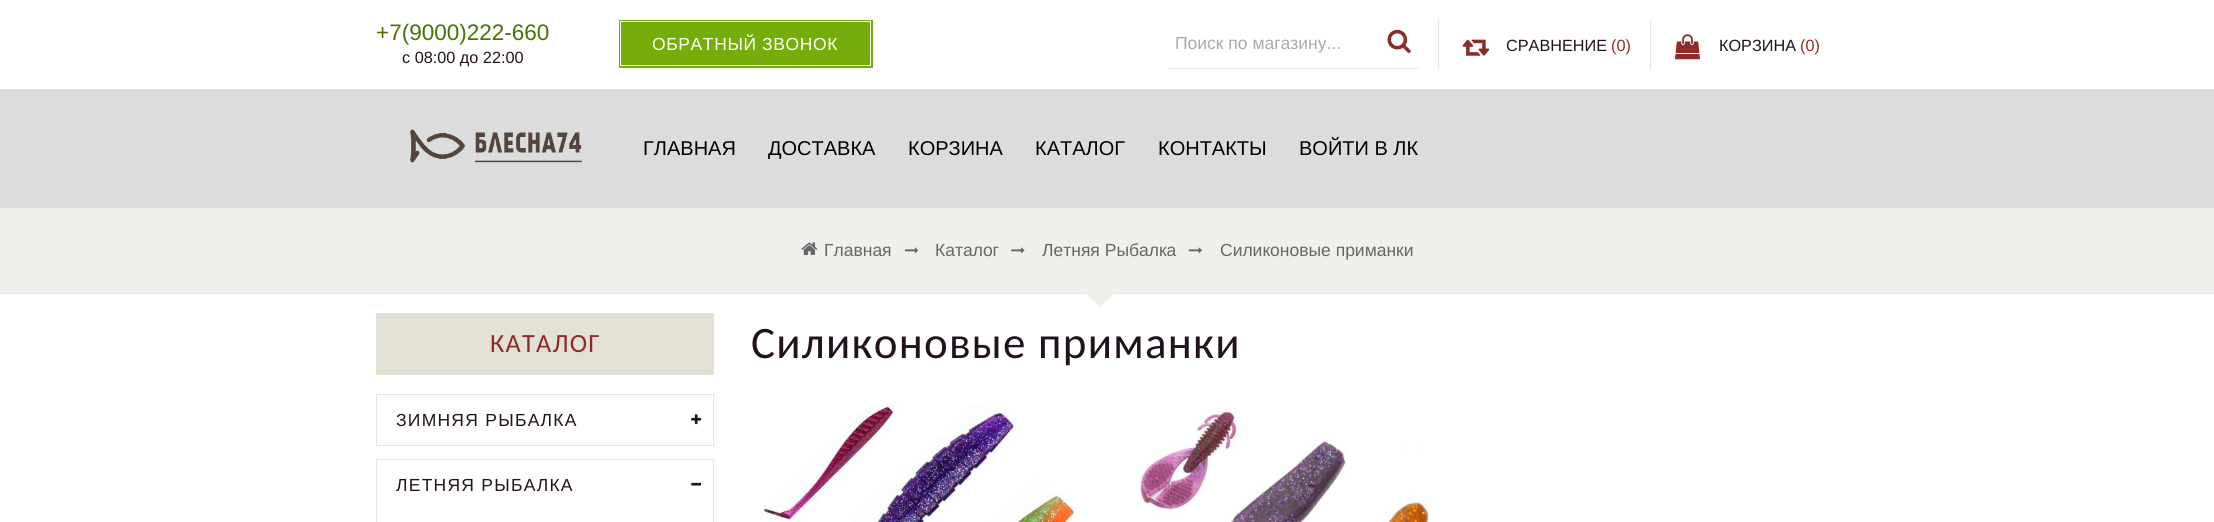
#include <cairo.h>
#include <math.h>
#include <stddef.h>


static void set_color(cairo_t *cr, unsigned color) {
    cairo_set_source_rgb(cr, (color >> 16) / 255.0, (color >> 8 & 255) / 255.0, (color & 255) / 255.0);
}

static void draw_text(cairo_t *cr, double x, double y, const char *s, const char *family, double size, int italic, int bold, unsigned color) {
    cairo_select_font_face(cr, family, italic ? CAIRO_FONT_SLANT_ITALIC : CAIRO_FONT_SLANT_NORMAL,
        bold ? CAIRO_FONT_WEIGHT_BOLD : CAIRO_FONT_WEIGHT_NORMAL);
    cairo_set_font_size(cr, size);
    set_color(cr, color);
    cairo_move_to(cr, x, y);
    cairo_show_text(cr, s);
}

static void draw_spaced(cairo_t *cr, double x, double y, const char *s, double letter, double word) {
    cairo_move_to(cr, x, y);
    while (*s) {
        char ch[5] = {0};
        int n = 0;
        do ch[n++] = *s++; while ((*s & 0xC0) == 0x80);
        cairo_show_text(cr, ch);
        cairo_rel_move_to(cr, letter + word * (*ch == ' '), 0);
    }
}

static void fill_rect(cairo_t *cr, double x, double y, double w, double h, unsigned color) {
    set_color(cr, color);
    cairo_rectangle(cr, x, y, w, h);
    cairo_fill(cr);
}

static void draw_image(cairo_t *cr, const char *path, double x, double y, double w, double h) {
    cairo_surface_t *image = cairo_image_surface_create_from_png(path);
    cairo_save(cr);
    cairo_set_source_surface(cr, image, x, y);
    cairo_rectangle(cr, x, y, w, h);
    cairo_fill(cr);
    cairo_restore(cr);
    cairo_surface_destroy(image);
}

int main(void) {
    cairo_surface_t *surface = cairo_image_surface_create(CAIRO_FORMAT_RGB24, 2214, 522);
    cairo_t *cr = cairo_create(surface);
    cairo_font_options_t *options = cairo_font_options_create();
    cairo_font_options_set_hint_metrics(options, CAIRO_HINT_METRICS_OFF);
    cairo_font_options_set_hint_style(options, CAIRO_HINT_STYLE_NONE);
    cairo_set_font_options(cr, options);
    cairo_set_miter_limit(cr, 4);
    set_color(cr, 0xFFFFFF);
    cairo_paint(cr);
    draw_text(cr, 376, 40, "+7(9000)222-660", "Liberation Sans", 22.5, 0, 0, 0x4B7103);
    draw_text(cr, 402, 63, "с 08:00 до 22:00", "Liberation Sans", 16.25, 0, 0, 0x22121E);
    fill_rect(cr, 619, 20, 254, 48, 0x75AE0A);
    cairo_rectangle(cr, 620.5, 21.5, 250, 44);
    set_color(cr, 0xFFFFFF);
    cairo_set_line_width(cr, 1);
    cairo_stroke(cr);
    cairo_set_font_size(cr, 17.5);
    draw_spaced(cr, 652, 50, "ОБРАТНЫЙ ЗВОНОК", 0.6, 0);
    fill_rect(cr, 1438, 19, 1, 50, 0xE5E5E5);
    fill_rect(cr, 1169, 68, 250, 1, 0xE5E5E5);
    draw_text(cr, 1175, 49, "Поиск по магазину...", "Liberation Sans", 17.5, 0, 0, 0xA9A9A9);
    draw_image(cr, "assets/img1.png", 1387, 29, 24, 24);
    fill_rect(cr, 1650, 20, 1, 50, 0xE5E5E5);
    draw_image(cr, "assets/img2.png", 1462, 39, 28, 17);
    draw_text(cr, 1506, 51, "СРАВНЕНИЕ", "Liberation Sans", 16.25, 0, 0, 0x22121E);
    draw_text(cr, 1611, 51, "(0)", "Liberation Sans", 16.25, 0, 0, 0x8C2C29);
    draw_image(cr, "assets/img3.png", 1675, 34, 25, 26);
    draw_text(cr, 1719, 51, "КОРЗИНА", "Liberation Sans", 16.25, 0, 0, 0x22121E);
    draw_text(cr, 1800, 51, "(0)", "Liberation Sans", 16.25, 0, 0, 0x8C2C29);
    fill_rect(cr, 0, 89, 2214, 119, 0xDCDCDC);
    draw_image(cr, "assets/img4.png", 410, 129, 172, 34);
    draw_text(cr, 643, 155, "ГЛАВНАЯ", "Liberation Sans", 20, 0, 0, 0x000000);
    draw_text(cr, 768, 155, "ДОСТАВКА", "Liberation Sans", 20, 0, 0, 0x000000);
    draw_text(cr, 908, 155, "КОРЗИНА", "Liberation Sans", 20, 0, 0, 0x000000);
    draw_text(cr, 1035, 155, "КАТАЛОГ", "Liberation Sans", 20, 0, 0, 0x000000);
    draw_text(cr, 1158, 155, "КОНТАКТЫ", "Liberation Sans", 20, 0, 0, 0x000000);
    draw_text(cr, 1299, 155, "ВОЙТИ В ЛК", "Liberation Sans", 20, 0, 0, 0x000000);
    fill_rect(cr, 0, 208, 2214, 85, 0xEFEFEC);
    fill_rect(cr, 0, 293, 2214, 1, 0xE5E5E5);
    draw_image(cr, "assets/img5.png", 801, 242, 17, 13);
    draw_text(cr, 824, 256, "Главная", "Liberation Sans", 17.5, 0, 0, 0x666666);
    draw_image(cr, "assets/img6.png", 905, 247, 14, 7);
    draw_text(cr, 935, 256, "Каталог", "Liberation Sans", 17.5, 0, 0, 0x666666);
    draw_image(cr, "assets/img7.png", 1011, 247, 14, 7);
    draw_text(cr, 1042, 256, "Летняя Рыбалка", "Liberation Sans", 17.5, 0, 0, 0x666666);
    draw_image(cr, "assets/img8.png", 1188, 247, 14, 7);
    draw_text(cr, 1220, 256, "Силиконовые приманки", "Liberation Sans", 17.5, 0, 0, 0x666666);
    set_color(cr, 0xEFEFEC);
    cairo_new_path(cr);
    cairo_move_to(cr, 1085, 292.5);
    cairo_line_to(cr, 1115, 292.5);
    cairo_line_to(cr, 1100, 307.5);
    cairo_close_path(cr);
    cairo_fill(cr);
    fill_rect(cr, 376, 313, 338, 62, 0xE3E1D5);
    cairo_select_font_face(cr, "Carlito", CAIRO_FONT_SLANT_NORMAL, CAIRO_FONT_WEIGHT_NORMAL);
    cairo_set_font_size(cr, 26.25);
    set_color(cr, 0x8C2C29);
    draw_spaced(cr, 490, 352, "КАТАЛОГ", 1.25, 0);
    cairo_rectangle(cr, 376.5, 394.5, 337, 51);
    set_color(cr, 0xE5E5E5);
    cairo_stroke(cr);
    cairo_select_font_face(cr, "Liberation Sans", CAIRO_FONT_SLANT_NORMAL, CAIRO_FONT_WEIGHT_NORMAL);
    cairo_set_font_size(cr, 17.5);
    set_color(cr, 0x22121E);
    draw_spaced(cr, 396, 426, "ЗИМНЯЯ РЫБАЛКА", 1.25, 0);
    draw_image(cr, "assets/img9.png", 691, 414, 11, 11);
    cairo_rectangle(cr, 376.5, 459.5, 337, 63);
    set_color(cr, 0xE5E5E5);
    cairo_stroke(cr);
    set_color(cr, 0x22121E);
    draw_spaced(cr, 396, 491, "ЛЕТНЯЯ РЫБАЛКА", 1.25, 0);
    draw_image(cr, "assets/img10.png", 691, 482, 11, 4);
    cairo_select_font_face(cr, "Carlito", CAIRO_FONT_SLANT_NORMAL, CAIRO_FONT_WEIGHT_NORMAL);
    cairo_set_font_size(cr, 45);
    draw_spaced(cr, 751, 358, "Силиконовые приманки", 1.25, 0);
    draw_image(cr, "assets/img11.png", 761, 405, 320, 117);
    draw_image(cr, "assets/img12.png", 1136, 410, 295, 112);
    cairo_surface_write_to_png(surface, "output.png");
    cairo_font_options_destroy(options);
    cairo_destroy(cr);
    cairo_surface_destroy(surface);
    return 0;
}
